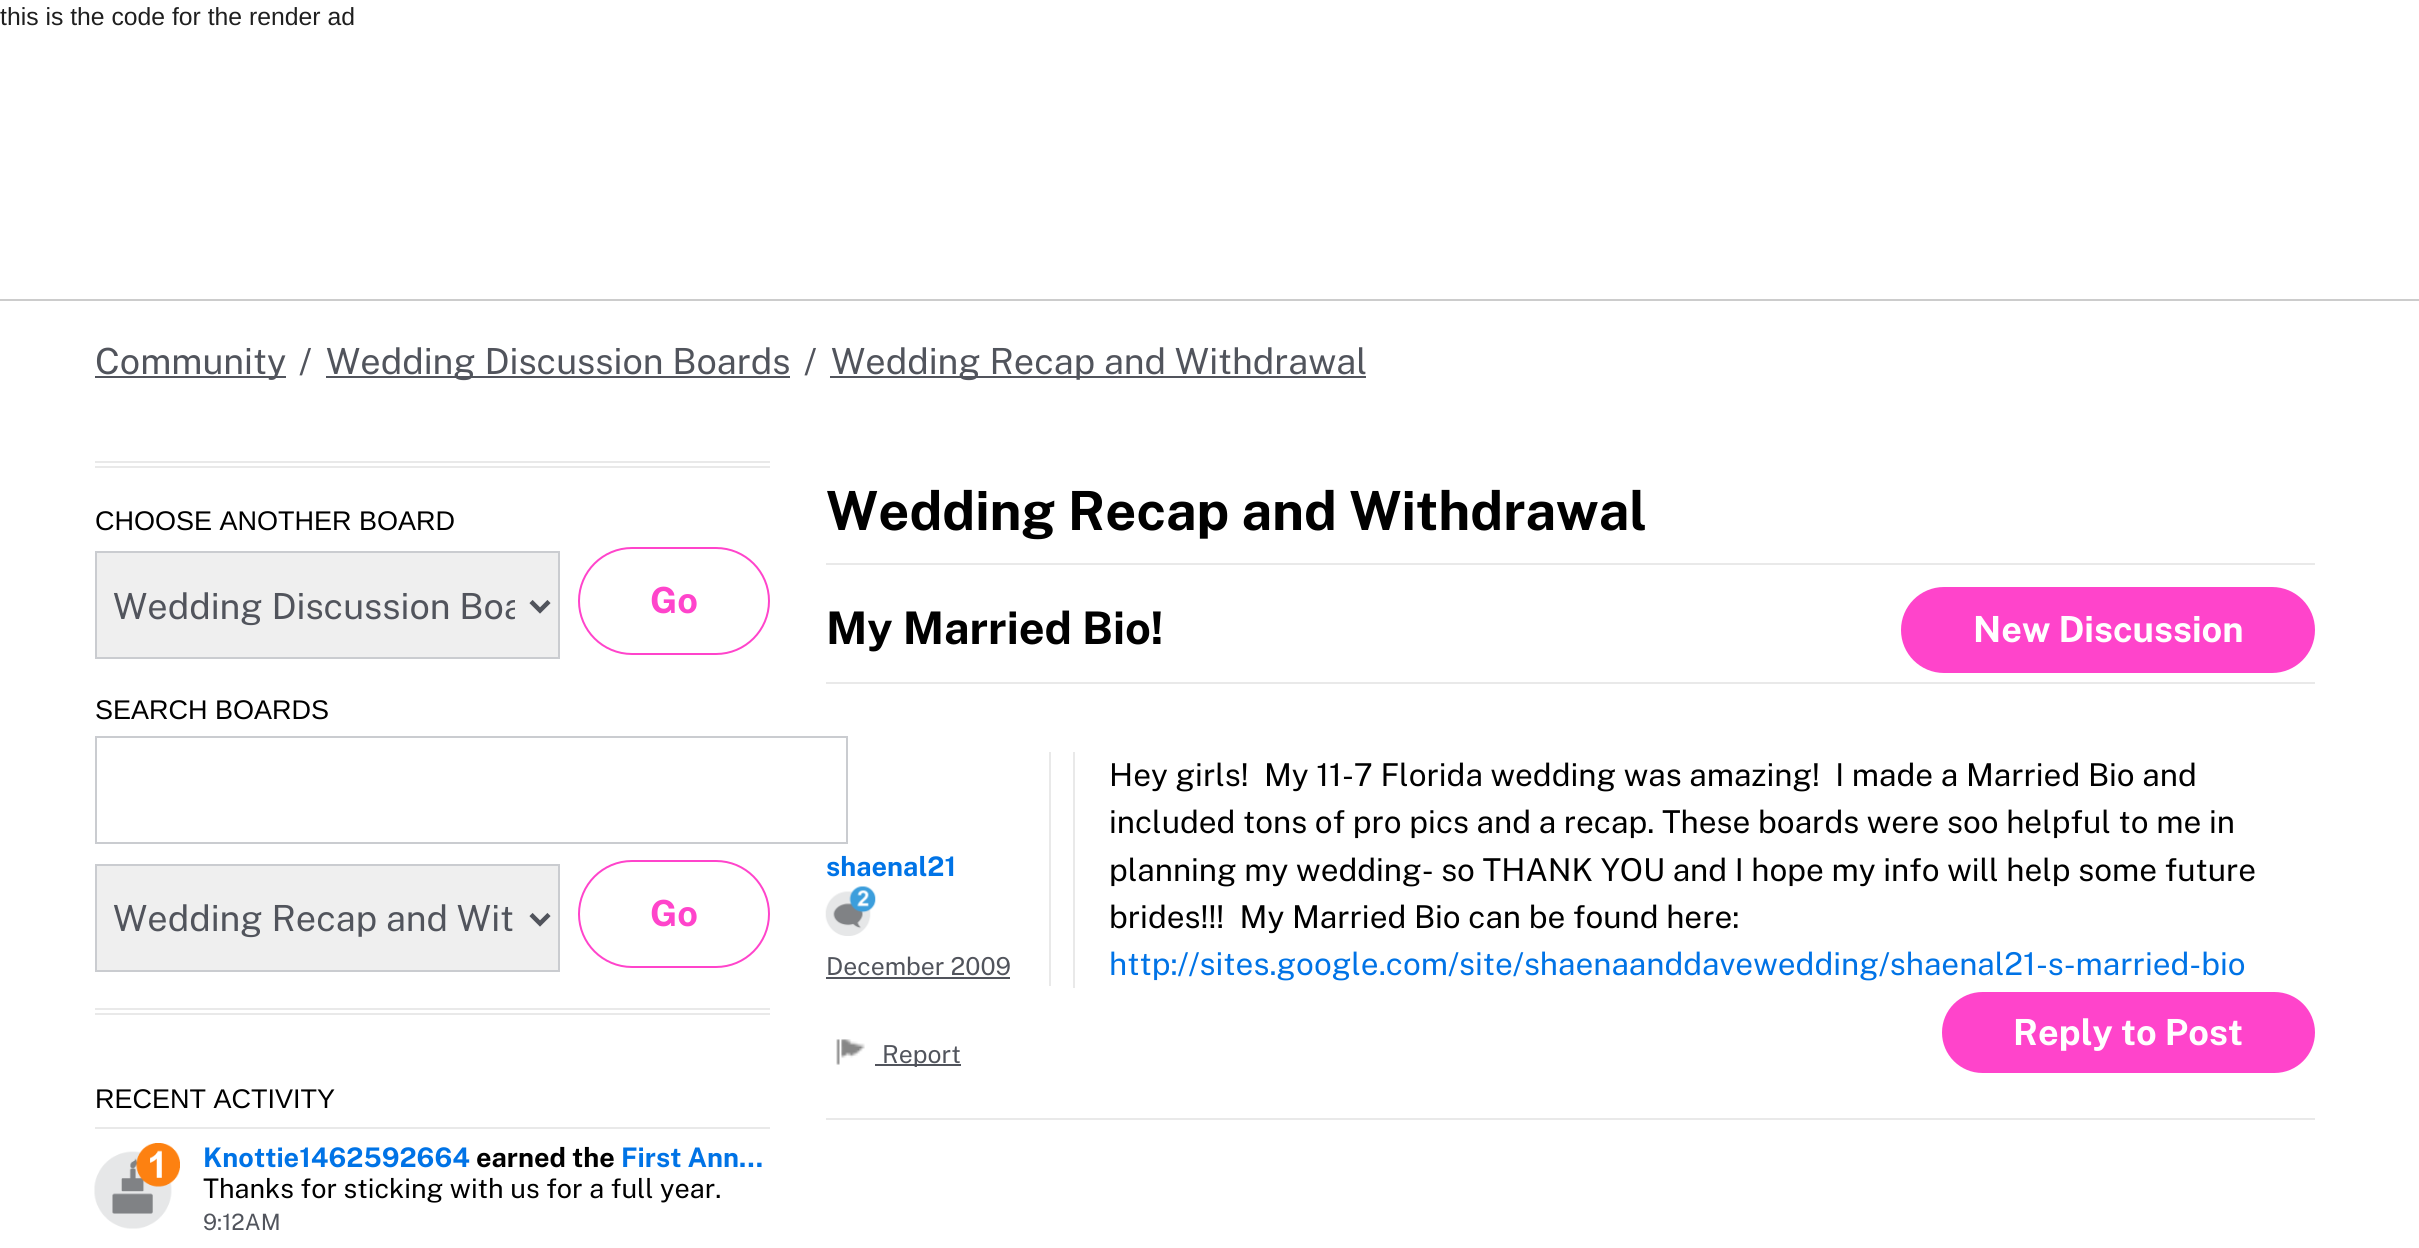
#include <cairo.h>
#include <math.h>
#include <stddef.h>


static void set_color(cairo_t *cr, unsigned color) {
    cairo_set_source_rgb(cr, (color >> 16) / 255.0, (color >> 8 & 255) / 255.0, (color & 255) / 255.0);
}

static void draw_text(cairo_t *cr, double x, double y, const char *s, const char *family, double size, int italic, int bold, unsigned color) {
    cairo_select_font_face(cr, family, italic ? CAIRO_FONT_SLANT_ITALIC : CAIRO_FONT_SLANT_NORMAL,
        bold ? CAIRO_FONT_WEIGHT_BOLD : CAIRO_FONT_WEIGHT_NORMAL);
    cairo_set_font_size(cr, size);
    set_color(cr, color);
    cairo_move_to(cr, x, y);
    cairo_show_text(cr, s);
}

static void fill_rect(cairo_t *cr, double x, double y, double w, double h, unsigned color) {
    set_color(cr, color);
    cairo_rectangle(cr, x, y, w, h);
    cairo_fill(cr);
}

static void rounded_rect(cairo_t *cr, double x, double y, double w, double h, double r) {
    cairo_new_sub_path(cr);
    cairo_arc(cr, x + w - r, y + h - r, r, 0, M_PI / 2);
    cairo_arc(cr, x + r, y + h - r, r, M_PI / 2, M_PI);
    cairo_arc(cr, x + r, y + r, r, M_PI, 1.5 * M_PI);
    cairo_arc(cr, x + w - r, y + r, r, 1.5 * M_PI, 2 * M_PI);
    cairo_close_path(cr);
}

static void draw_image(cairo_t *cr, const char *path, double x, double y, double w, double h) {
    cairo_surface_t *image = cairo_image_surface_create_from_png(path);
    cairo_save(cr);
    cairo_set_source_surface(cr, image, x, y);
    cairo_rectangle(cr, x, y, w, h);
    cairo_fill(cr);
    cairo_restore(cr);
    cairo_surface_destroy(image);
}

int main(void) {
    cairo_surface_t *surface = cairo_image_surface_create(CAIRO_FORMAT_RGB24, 2419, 1248);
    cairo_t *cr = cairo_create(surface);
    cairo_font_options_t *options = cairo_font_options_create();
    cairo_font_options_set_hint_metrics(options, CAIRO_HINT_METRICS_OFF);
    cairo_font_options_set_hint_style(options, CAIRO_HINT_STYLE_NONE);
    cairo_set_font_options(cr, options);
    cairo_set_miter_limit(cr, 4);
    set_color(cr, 0xFFFFFF);
    cairo_paint(cr);
    draw_text(cr, 0, 25, "this is the code for the render ad", "Liberation Sans", 24.75, 0, 0, 0x1F1F1F);
    fill_rect(cr, 0, 299, 2419, 2, 0xCCCCCC);
    fill_rect(cr, 95, 376, 191, 2, 0x51545C);
    draw_text(cr, 95, 374, "Community", "Public Sans", 36, 0, 0, 0x51545C);
    draw_text(cr, 299, 374, "/", "Public Sans", 36, 0, 0, 0x51545C);
    fill_rect(cr, 326, 376, 464, 2, 0x51545C);
    draw_text(cr, 326, 374, "Wedding Discussion Boards", "Public Sans", 36, 0, 0, 0x51545C);
    draw_text(cr, 804, 374, "/", "Public Sans", 36, 0, 0, 0x51545C);
    fill_rect(cr, 830, 376, 536, 2, 0x51545C);
    draw_text(cr, 831, 374, "Wedding Recap and Withdrawal", "Public Sans", 36, 0, 0, 0x51545C);
    fill_rect(cr, 95, 461, 675, 2, 0xE9E9E9);
    fill_rect(cr, 95, 466, 675, 2, 0xE9E9E9);
    fill_rect(cr, 95, 1008, 675, 2, 0xE9E9E9);
    fill_rect(cr, 95, 1013, 675, 2, 0xE9E9E9);
    draw_text(cr, 95, 530, "CHOOSE ANOTHER BOARD", "Liberation Sans", 27, 0, 0, 0x000000);
    set_color(cr, 0xEFEFEF);
    cairo_rectangle(cr, 96, 552, 463, 106);
    cairo_fill_preserve(cr);
    set_color(cr, 0xCACCD0);
    cairo_stroke(cr);
    cairo_new_path(cr);
    cairo_move_to(cr, 531, 601.5);
    cairo_line_to(cr, 540, 610.5);
    cairo_line_to(cr, 549, 601.5);
    set_color(cr, 0x51545C);
    cairo_set_line_width(cr, 4.5);
    cairo_stroke(cr);
    cairo_save(cr);
    cairo_rectangle(cr, 113, 583, 402, 47);
    cairo_clip(cr);
    draw_text(cr, 113, 619, "Wedding Discussion Boa", "Public Sans", 36, 0, 0, 0x51545C);
    cairo_restore(cr);
    rounded_rect(cr, 579, 548, 190, 106, 53);
    set_color(cr, 0xFF44CB);
    cairo_set_line_width(cr, 2);
    cairo_stroke(cr);
    draw_text(cr, 650, 613, "Go", "Public Sans", 36, 0, 1, 0xFF44CB);
    draw_text(cr, 95, 719, "SEARCH BOARDS", "Liberation Sans", 27, 0, 0, 0x000000);
    cairo_rectangle(cr, 96, 737, 751, 106);
    set_color(cr, 0xCACCD0);
    cairo_stroke(cr);
    set_color(cr, 0xEFEFEF);
    cairo_rectangle(cr, 96, 865, 463, 106);
    cairo_fill_preserve(cr);
    set_color(cr, 0xCACCD0);
    cairo_stroke(cr);
    cairo_new_path(cr);
    cairo_move_to(cr, 531, 914.5);
    cairo_line_to(cr, 540, 923.5);
    cairo_line_to(cr, 549, 914.5);
    set_color(cr, 0x51545C);
    cairo_set_line_width(cr, 4.5);
    cairo_stroke(cr);
    draw_text(cr, 113, 931, "Wedding Recap and Wit", "Public Sans", 36, 0, 0, 0x51545C);
    rounded_rect(cr, 579, 861, 190, 106, 53);
    set_color(cr, 0xFF44CB);
    cairo_set_line_width(cr, 2);
    cairo_stroke(cr);
    draw_text(cr, 650, 926, "Go", "Public Sans", 36, 0, 1, 0xFF44CB);
    fill_rect(cr, 95, 1127, 675, 2, 0xE9E9E9);
    draw_text(cr, 95, 1108, "RECENT ACTIVITY", "Liberation Sans", 27, 0, 0, 0x000000);
    draw_image(cr, "assets/img1.png", 94, 1143, 86, 86);
    draw_text(cr, 203, 1167, "Knottie1462592664", "Public Sans", 27, 0, 1, 0x0073E6);
    draw_text(cr, 476, 1167, "earned the", "Public Sans", 27, 0, 1, 0x000000);
    draw_text(cr, 621, 1167, "First Ann…", "Public Sans", 27, 0, 1, 0x0073E6);
    draw_text(cr, 203, 1198, "Thanks for sticking with us for a full year.", "Public Sans", 27, 0, 0, 0x000000);
    draw_text(cr, 203, 1230, "9:12AM", "Public Sans", 22.5, 0, 0, 0x51545C);
    fill_rect(cr, 826, 563, 1489, 2, 0xE9E9E9);
    draw_text(cr, 826, 530, "Wedding Recap and Withdrawal", "Public Sans", 54, 0, 1, 0x000000);
    fill_rect(cr, 826, 682, 1489, 2, 0xE9E9E9);
    draw_text(cr, 826, 644, "My Married Bio!", "Public Sans", 45, 0, 1, 0x000000);
    fill_rect(cr, 826, 1118, 1489, 2, 0xE9E9E9);
    fill_rect(cr, 1073, 752, 2, 236, 0xE9E9E9);
    draw_text(cr, 1109, 786, "Hey girls!  My 11-7 Florida wedding was amazing!  I made a Married Bio and", "Public Sans", 31.5, 0, 0, 0x000000);
    draw_text(cr, 1109, 833, "included tons of pro pics and a recap. These boards were soo helpful to me in", "Public Sans", 31.5, 0, 0, 0x000000);
    draw_text(cr, 1109, 881, "planning my wedding- so THANK YOU and I hope my info will help some future", "Public Sans", 31.5, 0, 0, 0x000000);
    draw_text(cr, 1109, 928, "brides!!!  My Married Bio can be found here:", "Public Sans", 31.5, 0, 0, 0x000000);
    draw_text(cr, 1109, 975, "http://sites.google.com/site/shaenaanddavewedding/shaenal21-s-married-bio", "Public Sans", 31.5, 0, 0, 0x0073E6);
    set_color(cr, 0xFF44CB);
    rounded_rect(cr, 1942, 992, 373, 81, 40.5);
    cairo_fill(cr);
    draw_text(cr, 2013, 1045, "Reply to Post", "Public Sans", 36, 0, 1, 0xFFFFFF);
    draw_image(cr, "assets/img2.png", 836, 1039, 29, 26);
    fill_rect(cr, 875, 1064, 86, 2, 0x51545C);
    draw_text(cr, 882, 1063, "Report", "Public Sans", 24.75, 0, 0, 0x51545C);
    fill_rect(cr, 1049, 752, 2, 234, 0xE9E9E9);
    draw_text(cr, 826, 876, "shaenal21", "Public Sans", 27, 0, 1, 0x0073E6);
    draw_image(cr, "assets/img3.png", 825, 886, 51, 50);
    draw_text(cr, 826, 975, "December 2009", "Public Sans", 24.75, 0, 0, 0x51545C);
    fill_rect(cr, 826, 977, 184, 2, 0x51545C);
    set_color(cr, 0xFF44CB);
    rounded_rect(cr, 1901, 587, 414, 86, 43);
    cairo_fill(cr);
    draw_text(cr, 1973, 642, "New Discussion", "Public Sans", 36, 0, 1, 0xFFFFFF);
    cairo_surface_write_to_png(surface, "output.png");
    cairo_font_options_destroy(options);
    cairo_destroy(cr);
    cairo_surface_destroy(surface);
    return 0;
}
